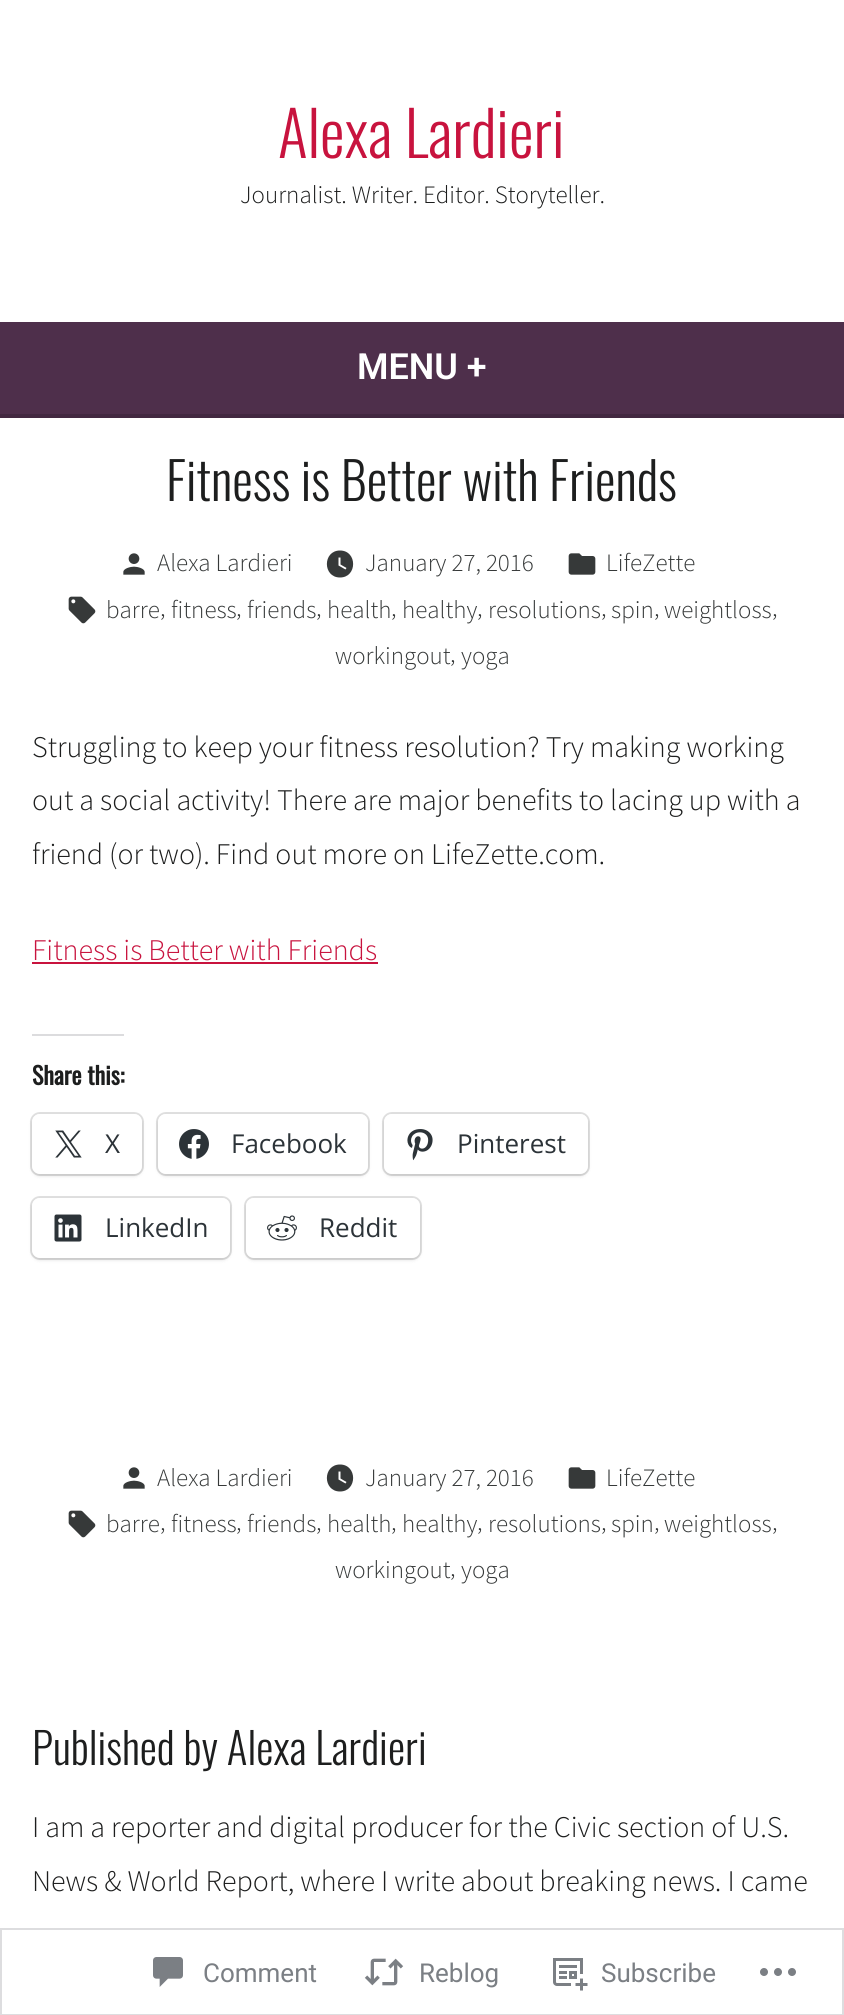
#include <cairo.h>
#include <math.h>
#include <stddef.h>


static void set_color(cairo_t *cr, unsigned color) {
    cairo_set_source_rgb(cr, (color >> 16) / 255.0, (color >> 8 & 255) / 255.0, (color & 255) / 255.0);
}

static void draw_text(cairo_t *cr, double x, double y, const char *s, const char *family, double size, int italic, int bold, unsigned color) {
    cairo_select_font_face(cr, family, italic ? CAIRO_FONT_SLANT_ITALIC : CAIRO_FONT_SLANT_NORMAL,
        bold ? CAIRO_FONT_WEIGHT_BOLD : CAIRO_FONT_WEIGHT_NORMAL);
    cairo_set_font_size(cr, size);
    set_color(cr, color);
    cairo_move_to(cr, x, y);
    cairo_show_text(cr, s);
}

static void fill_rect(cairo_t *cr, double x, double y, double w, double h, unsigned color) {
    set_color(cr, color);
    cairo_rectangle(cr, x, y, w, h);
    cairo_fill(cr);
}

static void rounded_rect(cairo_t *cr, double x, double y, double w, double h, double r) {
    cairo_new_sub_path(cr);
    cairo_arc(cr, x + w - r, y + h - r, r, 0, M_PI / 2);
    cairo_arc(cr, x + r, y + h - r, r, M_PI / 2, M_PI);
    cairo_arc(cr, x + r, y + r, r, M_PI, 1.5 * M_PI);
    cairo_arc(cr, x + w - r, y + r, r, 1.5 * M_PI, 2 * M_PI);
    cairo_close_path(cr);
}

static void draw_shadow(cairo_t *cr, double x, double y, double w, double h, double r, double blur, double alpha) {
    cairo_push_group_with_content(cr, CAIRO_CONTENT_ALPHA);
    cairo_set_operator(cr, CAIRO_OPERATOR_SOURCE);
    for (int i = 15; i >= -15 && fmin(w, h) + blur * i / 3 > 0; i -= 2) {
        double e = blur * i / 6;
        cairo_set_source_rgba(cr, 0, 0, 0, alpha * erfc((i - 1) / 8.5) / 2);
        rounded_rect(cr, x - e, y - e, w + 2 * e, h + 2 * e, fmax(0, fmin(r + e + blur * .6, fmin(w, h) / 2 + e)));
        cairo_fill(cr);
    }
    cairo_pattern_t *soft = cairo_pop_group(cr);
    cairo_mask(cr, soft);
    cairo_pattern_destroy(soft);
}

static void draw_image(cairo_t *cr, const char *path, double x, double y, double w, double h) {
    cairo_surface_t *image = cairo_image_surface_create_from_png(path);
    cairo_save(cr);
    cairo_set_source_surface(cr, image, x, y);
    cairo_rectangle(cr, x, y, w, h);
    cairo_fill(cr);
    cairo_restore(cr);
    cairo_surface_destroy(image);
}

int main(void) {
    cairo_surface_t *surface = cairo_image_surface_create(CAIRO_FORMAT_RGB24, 844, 2015);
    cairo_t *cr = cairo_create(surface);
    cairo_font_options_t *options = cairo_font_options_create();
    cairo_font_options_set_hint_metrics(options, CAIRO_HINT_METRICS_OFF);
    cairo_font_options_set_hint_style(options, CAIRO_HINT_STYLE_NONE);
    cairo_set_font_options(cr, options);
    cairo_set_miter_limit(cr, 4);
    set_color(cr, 0xFFFFFF);
    cairo_paint(cr);
    draw_text(cr, 278, 158, "Alexa Lardieri", "Oswald Light", 62, 0, 0, 0xC8133E);
    draw_text(cr, 240, 203, "Journalist. Writer. Editor. Storyteller.", "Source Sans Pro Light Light", 25, 0, 0, 0x1D1E1E);
    fill_rect(cr, 0, 322, 844, 92, 0x4E2F4B);
    fill_rect(cr, 0, 414, 844, 4, 0x422840);
    draw_text(cr, 357, 379, "MENU +", "Roboto SemiBold", 36, 0, 0, 0xFFFFFF);
    draw_text(cr, 166, 501, "Fitness is Better with Friends", "Oswald Light", 51.75, 0, 0, 0x1D1E1E);
    draw_image(cr, "assets/img1.png", 123, 553, 22, 22);
    draw_text(cr, 157, 571, "Alexa Lardieri", "Source Sans Pro Light Light", 25, 0, 0, 0x363939);
    cairo_new_path(cr);
    cairo_move_to(cr, 340, 550.5);
    cairo_curve_to(cr, 322.5, 550.5, 322.5, 577.5, 340, 577.5);
    cairo_curve_to(cr, 357.5, 577.5, 357.5, 550.5, 340, 550.5);
    cairo_close_path(cr);
    cairo_move_to(cr, 345.5, 569.5);
    cairo_line_to(cr, 338.5, 565.5);
    cairo_line_to(cr, 338.5, 557.5);
    cairo_line_to(cr, 340.5, 557.5);
    cairo_line_to(cr, 340.5, 564.5);
    cairo_line_to(cr, 346.5, 568);
    cairo_close_path(cr);
    cairo_fill(cr);
    draw_text(cr, 365, 571, "January 27, 2016", "Source Sans Pro Light Light", 25, 0, 0, 0x363939);
    draw_image(cr, "assets/img2.png", 568, 553, 28, 22);
    draw_text(cr, 606, 571, "LifeZette", "Source Sans Pro Light Light", 25, 0, 0, 0x363939);
    draw_image(cr, "assets/img3.png", 68, 596, 28, 28);
    draw_text(cr, 106, 618, "barre", "Source Sans Pro Light Light", 25, 0, 0, 0x363939);
    draw_text(cr, 160, 616, ",", "Source Sans Pro Light Light", 25, 0, 0, 0x363939);
    draw_text(cr, 171, 618, "fitness", "Source Sans Pro Light Light", 25, 0, 0, 0x363939);
    draw_text(cr, 236, 616, ",", "Source Sans Pro Light Light", 25, 0, 0, 0x363939);
    draw_text(cr, 247, 618, "friends", "Source Sans Pro Light Light", 25, 0, 0, 0x363939);
    draw_text(cr, 316, 616, ",", "Source Sans Pro Light Light", 25, 0, 0, 0x363939);
    draw_text(cr, 327, 618, "health", "Source Sans Pro Light Light", 25, 0, 0, 0x363939);
    draw_text(cr, 391, 616, ",", "Source Sans Pro Light Light", 25, 0, 0, 0x363939);
    draw_text(cr, 402, 618, "healthy", "Source Sans Pro Light Light", 25, 0, 0, 0x363939);
    draw_text(cr, 477, 616, ",", "Source Sans Pro Light Light", 25, 0, 0, 0x363939);
    draw_text(cr, 488, 618, "resolutions", "Source Sans Pro Light Light", 25, 0, 0, 0x363939);
    draw_text(cr, 601, 616, ",", "Source Sans Pro Light Light", 25, 0, 0, 0x363939);
    draw_text(cr, 611, 618, "spin", "Source Sans Pro Light Light", 25, 0, 0, 0x363939);
    draw_text(cr, 654, 616, ",", "Source Sans Pro Light Light", 25, 0, 0, 0x363939);
    draw_text(cr, 664, 618, "weightloss", "Source Sans Pro Light Light", 25, 0, 0, 0x363939);
    draw_text(cr, 772, 616, ",", "Source Sans Pro Light Light", 25, 0, 0, 0x363939);
    draw_text(cr, 335, 664, "workingout", "Source Sans Pro Light Light", 25, 0, 0, 0x363939);
    draw_text(cr, 450, 662, ",", "Source Sans Pro Light Light", 25, 0, 0, 0x363939);
    draw_text(cr, 461, 664, "yoga", "Source Sans Pro Light Light", 25, 0, 0, 0x363939);
    draw_text(cr, 32, 757, "Struggling to keep your fitness resolution? Try making working", "Source Sans Pro Light Light", 30, 0, 0, 0x1D1E1E);
    draw_text(cr, 32, 810, "out a social activity! There are major benefits to lacing up with a", "Source Sans Pro Light Light", 30, 0, 0, 0x1D1E1E);
    draw_text(cr, 32, 864, "friend (or two). Find out more on LifeZette.com.", "Source Sans Pro Light Light", 30, 0, 0, 0x1D1E1E);
    draw_text(cr, 32, 960, "Fitness is Better with Friends", "Source Sans Pro Light Light", 30, 0, 0, 0xC8133E);
    fill_rect(cr, 32, 962, 346, 2, 0xC8133E);
    fill_rect(cr, 32, 1034, 92, 2, 0xDCDCDE);
    draw_text(cr, 32, 1085, "Share this:", "Oswald", 24, 0, 1, 0x1D1E1E);
    rounded_rect(cr, 31, 1113, 112, 62, 9);
    set_color(cr, 0xE0E0E0);
    cairo_stroke(cr);
    set_color(cr, 0x000000);
    draw_shadow(cr, 32, 1116, 110, 60, 8, 2, 0.12);
    set_color(cr, 0xFFFFFF);
    rounded_rect(cr, 32, 1114, 110, 60, 8);
    cairo_fill(cr);
    draw_image(cr, "assets/img4.png", 55, 1130, 27, 28);
    draw_text(cr, 105, 1153, "X", "Open Sans", 26, 0, 0, 0x2C3338);
    rounded_rect(cr, 157, 1113, 212, 62, 9);
    set_color(cr, 0xE0E0E0);
    cairo_stroke(cr);
    set_color(cr, 0x000000);
    draw_shadow(cr, 158, 1116, 210, 60, 8, 2, 0.12);
    set_color(cr, 0xFFFFFF);
    rounded_rect(cr, 158, 1114, 210, 60, 8);
    cairo_fill(cr);
    draw_image(cr, "assets/img5.png", 179, 1129, 30, 30);
    draw_text(cr, 231, 1153, "Facebook", "Open Sans", 26, 0, 0, 0x2C3338);
    rounded_rect(cr, 383, 1113, 206, 62, 9);
    set_color(cr, 0xE0E0E0);
    cairo_stroke(cr);
    set_color(cr, 0x000000);
    draw_shadow(cr, 384, 1116, 204, 60, 8, 2, 0.12);
    set_color(cr, 0xFFFFFF);
    rounded_rect(cr, 384, 1114, 204, 60, 8);
    cairo_fill(cr);
    draw_image(cr, "assets/img6.png", 407, 1129, 26, 32);
    draw_text(cr, 457, 1153, "Pinterest", "Open Sans", 26, 0, 0, 0x2C3338);
    rounded_rect(cr, 31, 1197, 200, 62, 9);
    set_color(cr, 0xE0E0E0);
    cairo_stroke(cr);
    set_color(cr, 0x000000);
    draw_shadow(cr, 32, 1200, 198, 60, 8, 2, 0.12);
    set_color(cr, 0xFFFFFF);
    rounded_rect(cr, 32, 1198, 198, 60, 8);
    cairo_fill(cr);
    draw_image(cr, "assets/img7.png", 54, 1214, 28, 28);
    draw_text(cr, 105, 1237, "LinkedIn", "Open Sans", 26, 0, 0, 0x2C3338);
    rounded_rect(cr, 245, 1197, 176, 62, 9);
    set_color(cr, 0xE0E0E0);
    cairo_stroke(cr);
    set_color(cr, 0x000000);
    draw_shadow(cr, 246, 1200, 174, 60, 8, 2, 0.12);
    set_color(cr, 0xFFFFFF);
    rounded_rect(cr, 246, 1198, 174, 60, 8);
    cairo_fill(cr);
    draw_image(cr, "assets/img8.png", 267, 1215, 30, 26);
    draw_text(cr, 319, 1237, "Reddit", "Open Sans", 26, 0, 0, 0x2C3338);
    draw_image(cr, "assets/img1.png", 123, 1467, 22, 22);
    draw_text(cr, 157, 1486, "Alexa Lardieri", "Source Sans Pro Light Light", 25, 0, 0, 0x363939);
    cairo_new_path(cr);
    cairo_move_to(cr, 340, 1464.5);
    cairo_curve_to(cr, 322.5, 1464.5, 322.5, 1491.5, 340, 1491.5);
    cairo_curve_to(cr, 357.5, 1491.5, 357.5, 1464.5, 340, 1464.5);
    cairo_close_path(cr);
    cairo_move_to(cr, 345.5, 1483.5);
    cairo_line_to(cr, 338.5, 1479.5);
    cairo_line_to(cr, 338.5, 1471.5);
    cairo_line_to(cr, 340.5, 1471.5);
    cairo_line_to(cr, 340.5, 1478.5);
    cairo_line_to(cr, 346.5, 1482);
    cairo_close_path(cr);
    cairo_fill(cr);
    draw_text(cr, 365, 1486, "January 27, 2016", "Source Sans Pro Light Light", 25, 0, 0, 0x363939);
    draw_image(cr, "assets/img2.png", 568, 1467, 28, 22);
    draw_text(cr, 606, 1486, "LifeZette", "Source Sans Pro Light Light", 25, 0, 0, 0x363939);
    draw_image(cr, "assets/img3.png", 68, 1510, 28, 28);
    draw_text(cr, 106, 1532, "barre", "Source Sans Pro Light Light", 25, 0, 0, 0x363939);
    draw_text(cr, 160, 1530, ",", "Source Sans Pro Light Light", 25, 0, 0, 0x363939);
    draw_text(cr, 171, 1532, "fitness", "Source Sans Pro Light Light", 25, 0, 0, 0x363939);
    draw_text(cr, 236, 1530, ",", "Source Sans Pro Light Light", 25, 0, 0, 0x363939);
    draw_text(cr, 247, 1532, "friends", "Source Sans Pro Light Light", 25, 0, 0, 0x363939);
    draw_text(cr, 316, 1530, ",", "Source Sans Pro Light Light", 25, 0, 0, 0x363939);
    draw_text(cr, 327, 1532, "health", "Source Sans Pro Light Light", 25, 0, 0, 0x363939);
    draw_text(cr, 391, 1530, ",", "Source Sans Pro Light Light", 25, 0, 0, 0x363939);
    draw_text(cr, 402, 1532, "healthy", "Source Sans Pro Light Light", 25, 0, 0, 0x363939);
    draw_text(cr, 477, 1530, ",", "Source Sans Pro Light Light", 25, 0, 0, 0x363939);
    draw_text(cr, 488, 1532, "resolutions", "Source Sans Pro Light Light", 25, 0, 0, 0x363939);
    draw_text(cr, 601, 1530, ",", "Source Sans Pro Light Light", 25, 0, 0, 0x363939);
    draw_text(cr, 611, 1532, "spin", "Source Sans Pro Light Light", 25, 0, 0, 0x363939);
    draw_text(cr, 654, 1530, ",", "Source Sans Pro Light Light", 25, 0, 0, 0x363939);
    draw_text(cr, 664, 1532, "weightloss", "Source Sans Pro Light Light", 25, 0, 0, 0x363939);
    draw_text(cr, 772, 1530, ",", "Source Sans Pro Light Light", 25, 0, 0, 0x363939);
    draw_text(cr, 335, 1578, "workingout", "Source Sans Pro Light Light", 25, 0, 0, 0x363939);
    draw_text(cr, 450, 1576, ",", "Source Sans Pro Light Light", 25, 0, 0, 0x363939);
    draw_text(cr, 461, 1578, "yoga", "Source Sans Pro Light Light", 25, 0, 0, 0x363939);
    draw_text(cr, 32, 1765, "Published by Alexa Lardieri", "Oswald Light", 43.25, 0, 0, 0x1D1E1E);
    draw_text(cr, 32, 1837, "I am a reporter and digital producer for the Civic section of U.S.", "Source Sans Pro Light Light", 30, 0, 0, 0x1D1E1E);
    draw_text(cr, 32, 1891, "News & World Report, where I write about breaking news. I came", "Source Sans Pro Light Light", 30, 0, 0, 0x1D1E1E);
    cairo_rectangle(cr, 1, 1929, 842, 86);
    cairo_set_source_rgba(cr, 0.863, 0.863, 0.871, 0.98);
    cairo_stroke(cr);
    draw_image(cr, "assets/img9.png", 153, 1957, 30, 30);
    draw_text(cr, 203, 1982, "Comment", "Roboto", 26, 0, 0, 0x7B7F84);
    draw_image(cr, "assets/img10.png", 364, 1958, 40, 28);
    draw_text(cr, 419, 1982, "Reblog", "Roboto", 26, 0, 0, 0x7B7F84);
    draw_image(cr, "assets/img11.png", 553, 1958, 35, 33);
    draw_text(cr, 601, 1982, "Subscribe", "Roboto", 26, 0, 0, 0x7B7F84);
    draw_image(cr, "assets/img12.png", 760, 1968, 36, 8);
    cairo_surface_write_to_png(surface, "output.png");
    cairo_font_options_destroy(options);
    cairo_destroy(cr);
    cairo_surface_destroy(surface);
    return 0;
}
